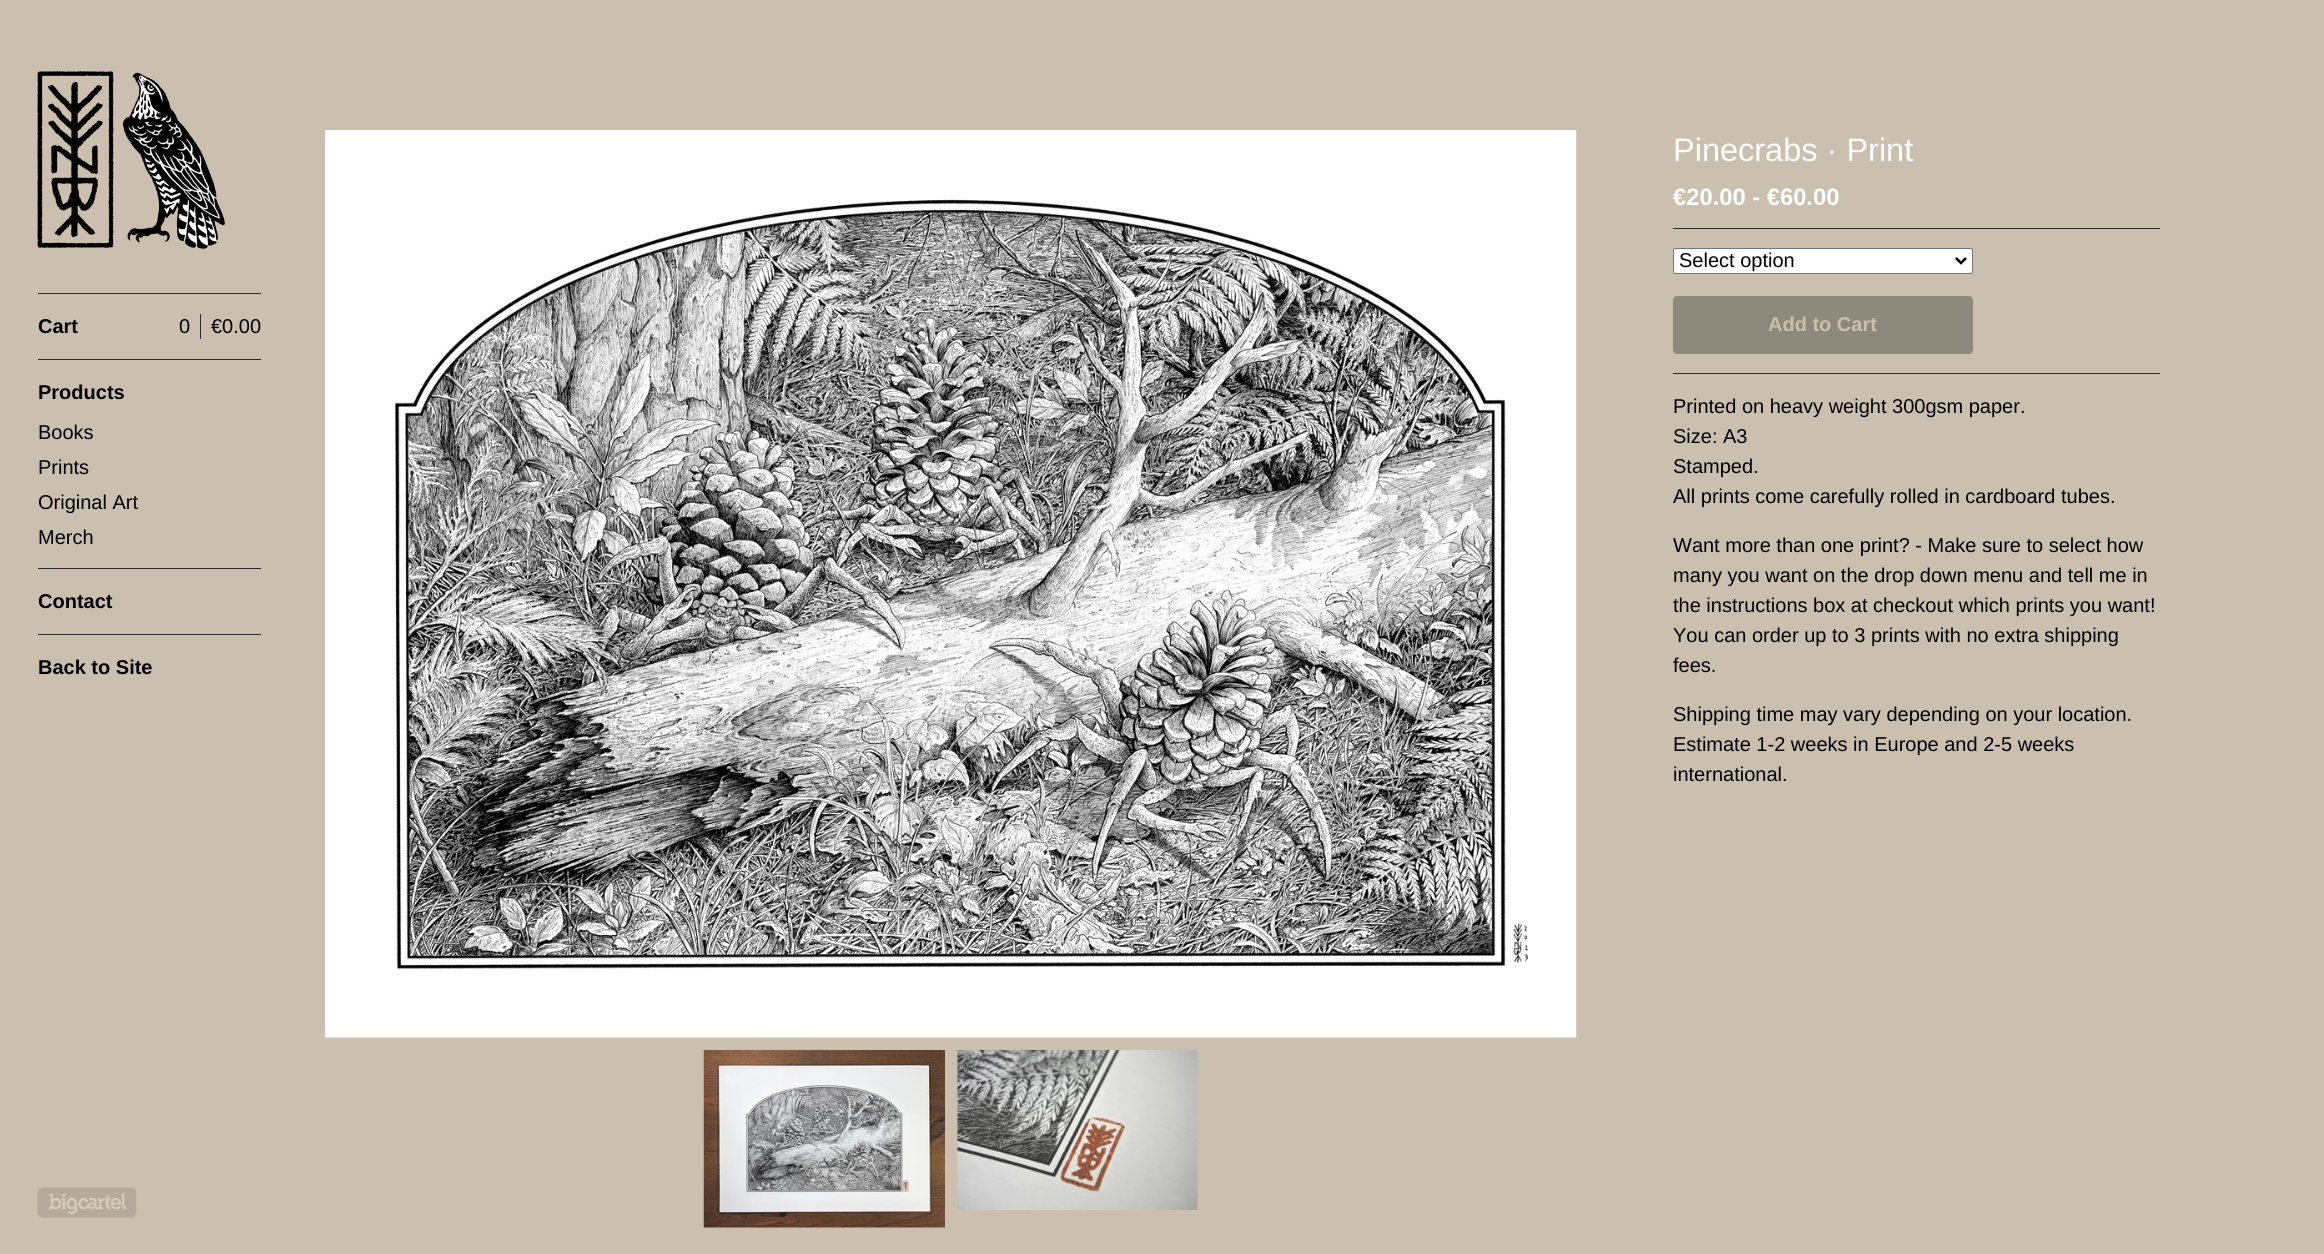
#include <cairo.h>
#include <math.h>
#include <stddef.h>


static void set_color(cairo_t *cr, unsigned color) {
    cairo_set_source_rgb(cr, (color >> 16) / 255.0, (color >> 8 & 255) / 255.0, (color & 255) / 255.0);
}

static void draw_text(cairo_t *cr, double x, double y, const char *s, const char *family, double size, int italic, int bold, unsigned color) {
    cairo_select_font_face(cr, family, italic ? CAIRO_FONT_SLANT_ITALIC : CAIRO_FONT_SLANT_NORMAL,
        bold ? CAIRO_FONT_WEIGHT_BOLD : CAIRO_FONT_WEIGHT_NORMAL);
    cairo_set_font_size(cr, size);
    set_color(cr, color);
    cairo_move_to(cr, x, y);
    cairo_show_text(cr, s);
}

static void fill_rect(cairo_t *cr, double x, double y, double w, double h, unsigned color) {
    set_color(cr, color);
    cairo_rectangle(cr, x, y, w, h);
    cairo_fill(cr);
}

static void rounded_rect(cairo_t *cr, double x, double y, double w, double h, double r) {
    cairo_new_sub_path(cr);
    cairo_arc(cr, x + w - r, y + h - r, r, 0, M_PI / 2);
    cairo_arc(cr, x + r, y + h - r, r, M_PI / 2, M_PI);
    cairo_arc(cr, x + r, y + r, r, M_PI, 1.5 * M_PI);
    cairo_arc(cr, x + w - r, y + r, r, 1.5 * M_PI, 2 * M_PI);
    cairo_close_path(cr);
}

static void draw_image(cairo_t *cr, const char *path, double x, double y, double w, double h) {
    cairo_surface_t *image = cairo_image_surface_create_from_png(path);
    cairo_save(cr);
    cairo_set_source_surface(cr, image, x, y);
    cairo_rectangle(cr, x, y, w, h);
    cairo_fill(cr);
    cairo_restore(cr);
    cairo_surface_destroy(image);
}

int main(void) {
    cairo_surface_t *surface = cairo_image_surface_create(CAIRO_FORMAT_RGB24, 2324, 1254);
    cairo_t *cr = cairo_create(surface);
    cairo_font_options_t *options = cairo_font_options_create();
    cairo_font_options_set_hint_metrics(options, CAIRO_HINT_METRICS_OFF);
    cairo_font_options_set_hint_style(options, CAIRO_HINT_STYLE_NONE);
    cairo_set_font_options(cr, options);
    cairo_set_miter_limit(cr, 4);
    set_color(cr, 0xCBBFAF);
    cairo_paint(cr);
    draw_image(cr, "assets/img1.png", 37, 71, 188, 178);
    fill_rect(cr, 38, 293, 223, 1, 0x2B2B2B);
    draw_text(cr, 38, 333, "Cart", "Liberation Sans", 20, 0, 1, 0x000000);
    draw_text(cr, 179, 333, "0", "Liberation Sans", 20, 0, 0, 0x000000);
    fill_rect(cr, 200, 314, 1, 25, 0x2B2B2B);
    draw_text(cr, 211, 333, "€0.00", "Liberation Sans", 20, 0, 0, 0x000000);
    fill_rect(cr, 38, 359, 223, 1, 0x2B2B2B);
    draw_text(cr, 38, 399, "Products", "Liberation Sans", 20, 0, 1, 0x000000);
    draw_text(cr, 38, 439, "Books", "Liberation Sans", 20, 0, 0, 0x000000);
    draw_text(cr, 38, 474, "Prints", "Liberation Sans", 20, 0, 0, 0x000000);
    draw_text(cr, 38, 509, "Original Art", "Liberation Sans", 20, 0, 0, 0x000000);
    draw_text(cr, 38, 544, "Merch", "Liberation Sans", 20, 0, 0, 0x000000);
    fill_rect(cr, 38, 568, 223, 1, 0x2B2B2B);
    draw_text(cr, 38, 608, "Contact", "Liberation Sans", 20, 0, 1, 0x000000);
    fill_rect(cr, 38, 634, 223, 1, 0x2B2B2B);
    draw_text(cr, 38, 674, "Back to Site", "Liberation Sans", 20, 0, 1, 0x000000);
    draw_image(cr, "assets/img2.png", 37, 1187, 100, 31);
    draw_image(cr, "assets/img3.png", 325, 130, 1252, 908);
    draw_image(cr, "assets/img4.png", 703, 1050, 242, 178);
    draw_image(cr, "assets/img5.png", 957, 1050, 241, 160);
    draw_text(cr, 1673, 161, "Pinecrabs · Print", "Liberation Sans", 32.5, 0, 0, 0xFFFFFF);
    draw_text(cr, 1673, 205, "€20.00 - €60.00", "Liberation Sans", 23.75, 0, 1, 0xFFFFFF);
    fill_rect(cr, 1673, 228, 487, 1, 0x2B2B2B);
    set_color(cr, 0xFFFFFF);
    rounded_rect(cr, 1673.5, 248.5, 299, 25, 2);
    cairo_fill_preserve(cr);
    set_color(cr, 0x767676);
    cairo_set_line_width(cr, 1);
    cairo_stroke(cr);
    cairo_new_path(cr);
    cairo_move_to(cr, 1956, 258);
    cairo_line_to(cr, 1961, 263);
    cairo_line_to(cr, 1966, 258);
    set_color(cr, 0x000000);
    cairo_set_line_width(cr, 2.5);
    cairo_stroke(cr);
    draw_text(cr, 1679, 267, "Select option", "Liberation Sans", 20, 0, 0, 0x000000);
    set_color(cr, 0x8E897D);
    rounded_rect(cr, 1673, 296, 300, 58, 4);
    cairo_fill(cr);
    draw_text(cr, 1768, 331, "Add to Cart", "Liberation Sans", 20, 0, 1, 0xCBBFAF);
    fill_rect(cr, 1673, 373, 487, 1, 0x2B2B2B);
    draw_text(cr, 1673, 413, "Printed on heavy weight 300gsm paper.", "Liberation Sans", 20, 0, 0, 0x000000);
    draw_text(cr, 1673, 443, "Size: A3", "Liberation Sans", 20, 0, 0, 0x000000);
    draw_text(cr, 1673, 473, "Stamped.", "Liberation Sans", 20, 0, 0, 0x000000);
    draw_text(cr, 1673, 503, "All prints come carefully rolled in cardboard tubes.", "Liberation Sans", 20, 0, 0, 0x000000);
    draw_text(cr, 1673, 552, "Want more than one print? - Make sure to select how", "Liberation Sans", 20, 0, 0, 0x000000);
    draw_text(cr, 1673, 582, "many you want on the drop down menu and tell me in", "Liberation Sans", 20, 0, 0, 0x000000);
    draw_text(cr, 1673, 612, "the instructions box at checkout which prints you want!", "Liberation Sans", 20, 0, 0, 0x000000);
    draw_text(cr, 1673, 642, "You can order up to 3 prints with no extra shipping", "Liberation Sans", 20, 0, 0, 0x000000);
    draw_text(cr, 1673, 672, "fees.", "Liberation Sans", 20, 0, 0, 0x000000);
    draw_text(cr, 1673, 721, "Shipping time may vary depending on your location.", "Liberation Sans", 20, 0, 0, 0x000000);
    draw_text(cr, 1673, 751, "Estimate 1-2 weeks in Europe and 2-5 weeks", "Liberation Sans", 20, 0, 0, 0x000000);
    draw_text(cr, 1673, 781, "international.", "Liberation Sans", 20, 0, 0, 0x000000);
    cairo_surface_write_to_png(surface, "output.png");
    cairo_font_options_destroy(options);
    cairo_destroy(cr);
    cairo_surface_destroy(surface);
    return 0;
}
